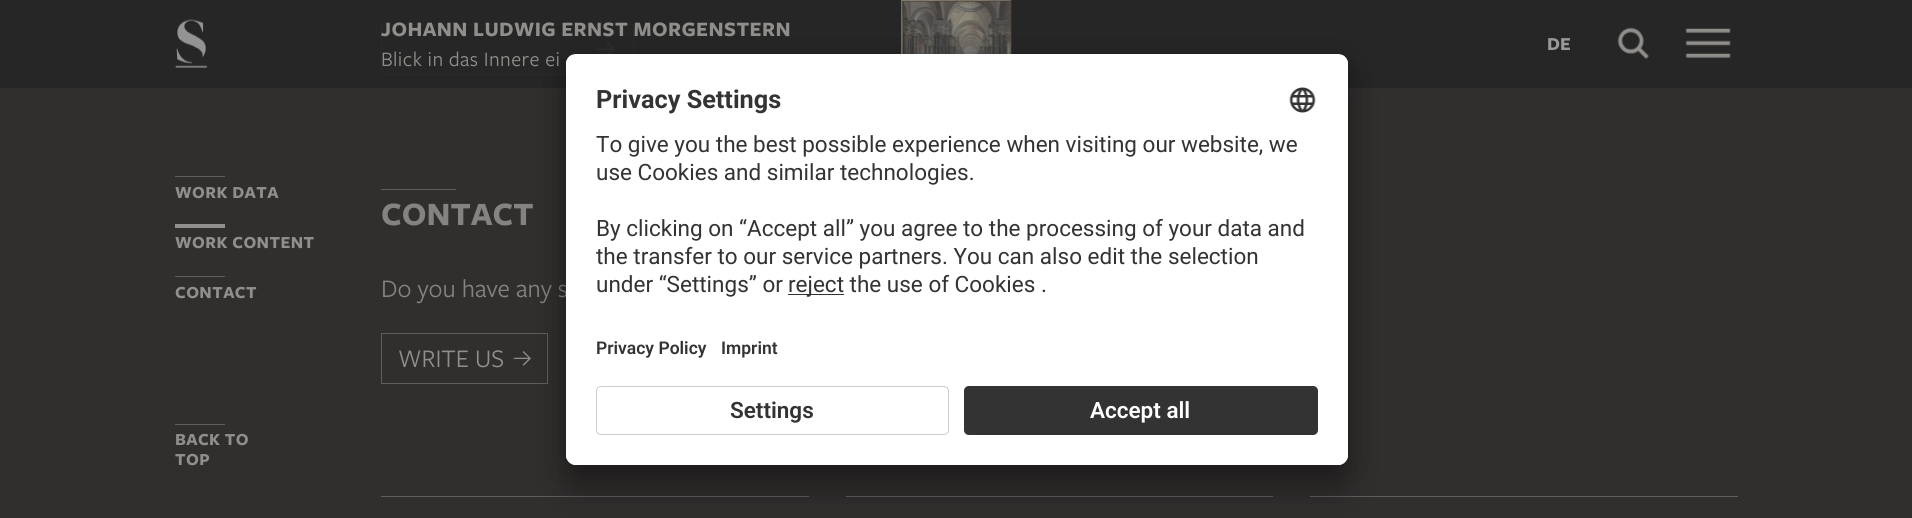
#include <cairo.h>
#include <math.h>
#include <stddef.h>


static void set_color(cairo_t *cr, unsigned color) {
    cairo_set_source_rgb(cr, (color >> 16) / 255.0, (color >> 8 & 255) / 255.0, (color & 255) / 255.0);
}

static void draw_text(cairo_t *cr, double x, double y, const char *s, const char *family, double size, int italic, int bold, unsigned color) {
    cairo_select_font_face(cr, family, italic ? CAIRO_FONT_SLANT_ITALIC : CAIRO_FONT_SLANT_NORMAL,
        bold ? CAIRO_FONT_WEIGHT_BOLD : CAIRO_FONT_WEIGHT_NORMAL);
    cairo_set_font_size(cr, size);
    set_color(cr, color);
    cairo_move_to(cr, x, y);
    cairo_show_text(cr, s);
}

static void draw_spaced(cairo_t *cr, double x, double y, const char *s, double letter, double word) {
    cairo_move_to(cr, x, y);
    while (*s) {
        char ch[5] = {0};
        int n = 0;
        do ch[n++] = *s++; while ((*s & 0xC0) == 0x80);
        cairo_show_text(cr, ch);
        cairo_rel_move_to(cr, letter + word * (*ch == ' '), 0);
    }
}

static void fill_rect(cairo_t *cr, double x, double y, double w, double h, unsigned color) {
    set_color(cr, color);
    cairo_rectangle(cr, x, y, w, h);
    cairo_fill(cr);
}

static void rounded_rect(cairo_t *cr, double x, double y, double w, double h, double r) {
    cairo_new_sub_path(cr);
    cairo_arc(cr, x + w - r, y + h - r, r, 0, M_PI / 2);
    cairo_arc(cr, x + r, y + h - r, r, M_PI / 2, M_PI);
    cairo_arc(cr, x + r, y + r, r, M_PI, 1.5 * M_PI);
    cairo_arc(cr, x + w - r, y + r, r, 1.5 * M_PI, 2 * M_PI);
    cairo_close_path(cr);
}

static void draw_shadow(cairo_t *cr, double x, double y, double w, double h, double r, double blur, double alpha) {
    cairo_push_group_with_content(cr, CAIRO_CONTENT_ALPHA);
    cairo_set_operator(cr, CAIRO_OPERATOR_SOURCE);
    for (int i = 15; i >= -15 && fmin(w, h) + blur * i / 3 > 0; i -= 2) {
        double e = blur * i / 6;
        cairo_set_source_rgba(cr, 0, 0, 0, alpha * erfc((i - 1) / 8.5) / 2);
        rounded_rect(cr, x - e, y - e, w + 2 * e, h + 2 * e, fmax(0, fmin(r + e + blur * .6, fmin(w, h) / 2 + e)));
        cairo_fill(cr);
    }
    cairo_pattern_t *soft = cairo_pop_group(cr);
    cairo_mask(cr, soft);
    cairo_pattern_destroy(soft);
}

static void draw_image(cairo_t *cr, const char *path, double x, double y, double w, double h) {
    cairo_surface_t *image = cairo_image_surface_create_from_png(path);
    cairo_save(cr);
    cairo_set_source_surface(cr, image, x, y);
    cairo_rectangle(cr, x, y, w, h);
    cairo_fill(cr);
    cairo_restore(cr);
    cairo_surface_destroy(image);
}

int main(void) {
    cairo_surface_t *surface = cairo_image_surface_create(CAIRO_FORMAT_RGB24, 1912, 518);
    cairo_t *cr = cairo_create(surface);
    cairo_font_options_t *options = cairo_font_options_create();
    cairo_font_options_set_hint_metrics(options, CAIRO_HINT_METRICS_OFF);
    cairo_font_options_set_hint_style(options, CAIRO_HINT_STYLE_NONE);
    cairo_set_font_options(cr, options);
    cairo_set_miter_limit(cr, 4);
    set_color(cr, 0x312F2E);
    cairo_paint(cr);
    fill_rect(cr, 0, 0, 1912, 88, 0x272626);
    draw_image(cr, "assets/img1.png", 175, 19, 32, 49);
    cairo_rectangle(cr, 381.5, 24.5, 252, 50);
    set_color(cr, 0x2C2B2A);
    cairo_set_line_width(cr, 1);
    cairo_stroke(cr);
    cairo_select_font_face(cr, "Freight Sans", CAIRO_FONT_SLANT_NORMAL, CAIRO_FONT_WEIGHT_BOLD);
    cairo_set_font_size(cr, 21.25);
    set_color(cr, 0x908F8B);
    draw_spaced(cr, 381, 36, "JOHANN LUDWIG ERNST MORGENSTERN", 0.4, 0);
    cairo_select_font_face(cr, "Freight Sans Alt", CAIRO_FONT_SLANT_NORMAL, CAIRO_FONT_WEIGHT_NORMAL);
    draw_spaced(cr, 381, 66, "Blick in das Innere ei", 0.4, 0);
    draw_image(cr, "assets/img2.png", 901, 0, 111, 54);
    draw_text(cr, 1547, 50, "DE", "Freight Sans", 19, 0, 1, 0x999999);
    draw_image(cr, "assets/img3.png", 1617, 27, 32, 32);
    draw_image(cr, "assets/img4.png", 1685, 28, 46, 30);
    draw_image(cr, "assets/img5.png", 596, 41, 19, 13);
    fill_rect(cr, 175, 176, 50, 1, 0x615F5D);
    cairo_set_font_size(cr, 17.5);
    set_color(cr, 0x908F8B);
    draw_spaced(cr, 175, 198, "WORK DATA", 0.4, 0);
    fill_rect(cr, 175, 224, 50, 4, 0x908F8B);
    draw_spaced(cr, 175, 248, "WORK CONTENT", 0.4, 0);
    fill_rect(cr, 175, 276, 50, 1, 0x615F5D);
    set_color(cr, 0x908F8B);
    draw_spaced(cr, 175, 298, "CONTACT", 0.4, 0);
    fill_rect(cr, 175, 424, 50, 1, 0x615F5D);
    set_color(cr, 0x908F8B);
    draw_spaced(cr, 175, 445, "BACK TO", 0.4, 0);
    draw_spaced(cr, 175, 465, "TOP", 0.4, 0);
    fill_rect(cr, 381, 189, 75, 1, 0x615F5D);
    draw_text(cr, 381, 225, "CONTACT", "Freight Sans", 33.75, 0, 1, 0x858380);
    draw_text(cr, 381, 297, "Do you have any s", "Freight Sans", 26.25, 0, 0, 0x858380);
    cairo_rectangle(cr, 381.5, 333.5, 166, 50);
    set_color(cr, 0x615F5D);
    cairo_stroke(cr);
    draw_text(cr, 398, 367, "WRITE US", "Freight Sans", 26.25, 0, 0, 0x908F8B);
    draw_image(cr, "assets/img6.png", 513, 351, 18, 15);
    fill_rect(cr, 381, 496, 428, 1, 0x615F5D);
    fill_rect(cr, 846, 496, 427, 1, 0x615F5D);
    fill_rect(cr, 1310, 496, 428, 1, 0x615F5D);
    set_color(cr, 0x000000);
    draw_shadow(cr, 566, 79, 782, 411, 10, 17.5, 0.3);
    draw_shadow(cr, 566, 60, 782, 411, 10, 16, 0.22);
    set_color(cr, 0xFFFFFF);
    rounded_rect(cr, 566, 54, 782, 411, 10);
    cairo_fill(cr);
    cairo_save(cr);
    rounded_rect(cr, 566, 54, 782, 411, 10);
    cairo_clip(cr);
    cairo_new_path(cr);
    cairo_move_to(cr, 576, 54);
    cairo_line_to(cr, 1338, 54);
    cairo_curve_to(cr, 1343.5, 54, 1348, 58.5, 1348, 64);
    cairo_line_to(cr, 1348, 376);
    cairo_line_to(cr, 566, 376);
    cairo_line_to(cr, 566, 64);
    cairo_curve_to(cr, 566, 58.5, 570.5, 54, 576, 54);
    cairo_close_path(cr);
    cairo_clip(cr);
    fill_rect(cr, 566, 55, 782, 321, 0xFFFFFF);
    cairo_restore(cr);
    draw_text(cr, 596, 108, "Privacy Settings", "Roboto", 25.25, 0, 1, 0x333333);
    draw_image(cr, "assets/img7.png", 1289, 87, 27, 26);
    draw_text(cr, 596, 152, "To give you the best possible experience when visiting our website, we", "Roboto", 22.5, 0, 0, 0x333333);
    draw_text(cr, 596, 180, "use Cookies and similar technologies.", "Roboto", 22.5, 0, 0, 0x333333);
    draw_text(cr, 596, 236, "By clicking on “Accept all” you agree to the processing of your data and", "Roboto", 22.5, 0, 0, 0x333333);
    draw_text(cr, 596, 264, "the transfer to our service partners. You can also edit the selection", "Roboto", 22.5, 0, 0, 0x333333);
    draw_text(cr, 596, 292, "under “Settings” or", "Roboto", 22.5, 0, 0, 0x333333);
    fill_rect(cr, 788, 294, 56, 1, 0x333333);
    draw_text(cr, 788, 292, "reject the use of Cookies .", "Roboto", 22.5, 0, 0, 0x333333);
    draw_text(cr, 596, 354, "Privacy Policy", "Roboto SemiBold", 17.5, 0, 0, 0x333333);
    draw_text(cr, 721, 354, "Imprint", "Roboto SemiBold", 17.5, 0, 0, 0x333333);
    set_color(cr, 0xFFFFFF);
    cairo_new_path(cr);
    cairo_move_to(cr, 566, 376);
    cairo_line_to(cr, 1348, 376);
    cairo_line_to(cr, 1348, 455);
    cairo_curve_to(cr, 1348, 460.5, 1343.5, 465, 1338, 465);
    cairo_line_to(cr, 576, 465);
    cairo_curve_to(cr, 570.5, 465, 566, 460.5, 566, 455);
    cairo_close_path(cr);
    cairo_fill(cr);
    rounded_rect(cr, 596.5, 386.5, 352, 48, 4.5);
    set_color(cr, 0xCDCDCD);
    cairo_stroke(cr);
    draw_text(cr, 730, 418, "Settings", "Roboto SemiBold", 22.5, 0, 0, 0x333333);
    rounded_rect(cr, 964, 386, 354, 49, 5);
    cairo_fill(cr);
    rounded_rect(cr, 964.5, 386.5, 353, 48, 4.5);
    cairo_set_source_rgba(cr, 0.208, 0.208, 0.208, 0.25);
    cairo_stroke(cr);
    draw_text(cr, 1090, 418, "Accept all", "Roboto SemiBold", 22.5, 0, 0, 0xFFFFFF);
    cairo_surface_write_to_png(surface, "output.png");
    cairo_font_options_destroy(options);
    cairo_destroy(cr);
    cairo_surface_destroy(surface);
    return 0;
}
